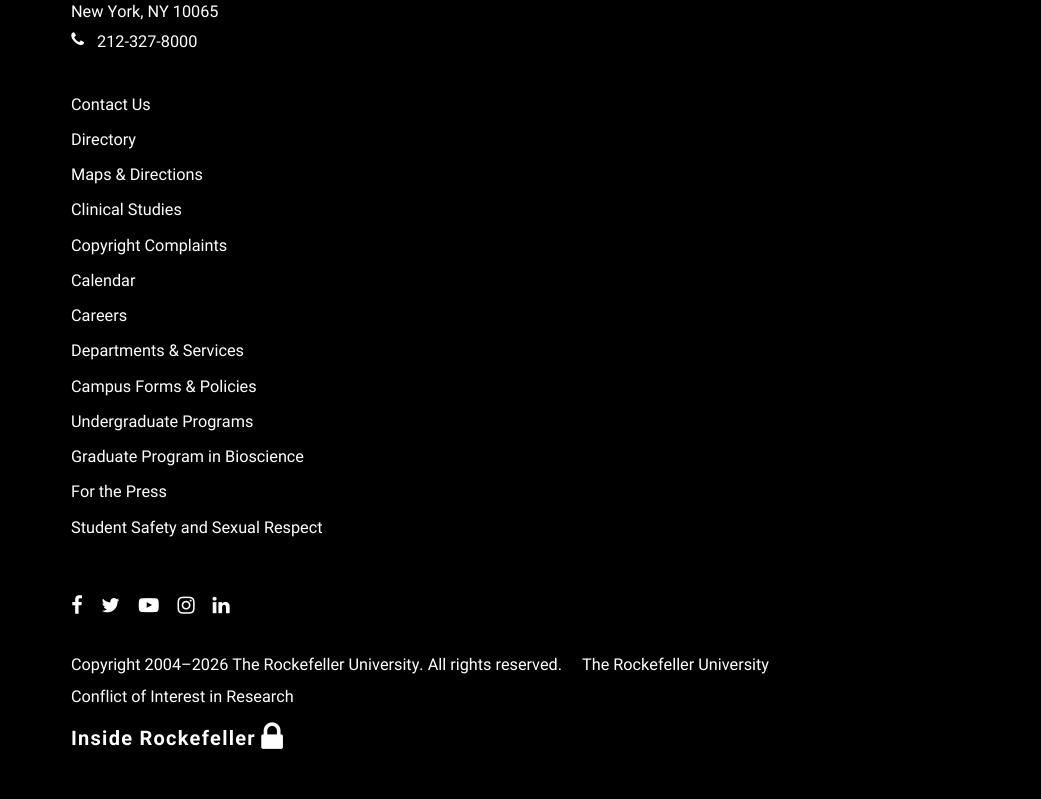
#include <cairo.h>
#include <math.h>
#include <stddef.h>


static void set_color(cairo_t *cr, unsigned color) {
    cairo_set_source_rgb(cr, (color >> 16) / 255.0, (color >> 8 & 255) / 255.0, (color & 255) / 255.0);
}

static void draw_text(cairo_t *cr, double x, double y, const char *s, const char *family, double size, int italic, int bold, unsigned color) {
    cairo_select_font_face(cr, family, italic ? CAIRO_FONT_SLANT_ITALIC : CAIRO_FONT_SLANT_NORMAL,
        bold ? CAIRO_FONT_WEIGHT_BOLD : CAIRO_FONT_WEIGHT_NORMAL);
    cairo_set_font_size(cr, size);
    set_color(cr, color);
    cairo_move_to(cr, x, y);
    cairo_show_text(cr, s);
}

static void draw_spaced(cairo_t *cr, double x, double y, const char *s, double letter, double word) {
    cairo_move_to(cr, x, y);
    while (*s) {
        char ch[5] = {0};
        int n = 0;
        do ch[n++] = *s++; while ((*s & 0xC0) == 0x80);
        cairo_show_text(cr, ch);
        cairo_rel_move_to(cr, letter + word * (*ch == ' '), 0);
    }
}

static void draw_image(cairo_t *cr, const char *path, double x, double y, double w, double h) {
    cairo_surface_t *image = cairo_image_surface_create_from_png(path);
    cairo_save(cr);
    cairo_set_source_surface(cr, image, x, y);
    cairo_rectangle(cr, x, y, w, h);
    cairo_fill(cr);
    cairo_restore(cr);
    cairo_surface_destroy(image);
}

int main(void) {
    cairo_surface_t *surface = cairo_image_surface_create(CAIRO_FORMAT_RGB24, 1041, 799);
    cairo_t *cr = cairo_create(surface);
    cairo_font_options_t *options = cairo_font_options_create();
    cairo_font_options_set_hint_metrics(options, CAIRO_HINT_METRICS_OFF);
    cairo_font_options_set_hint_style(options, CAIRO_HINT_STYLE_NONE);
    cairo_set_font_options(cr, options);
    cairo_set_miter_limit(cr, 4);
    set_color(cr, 0x000000);
    cairo_paint(cr);
    draw_text(cr, 71, 17, "New York, NY 10065", "Roboto", 16.25, 0, 0, 0xFFFFFF);
    draw_image(cr, "assets/img1.png", 71, 32, 13, 14);
    draw_text(cr, 97, 47, "212-327-8000", "Roboto", 16.25, 0, 0, 0xFFFFFF);
    draw_text(cr, 71, 110, "Contact Us", "Roboto", 16.25, 0, 0, 0xFFFFFF);
    draw_text(cr, 71, 145, "Directory", "Roboto", 16.25, 0, 0, 0xFFFFFF);
    draw_text(cr, 71, 180, "Maps & Directions", "Roboto", 16.25, 0, 0, 0xFFFFFF);
    draw_text(cr, 71, 215, "Clinical Studies", "Roboto", 16.25, 0, 0, 0xFFFFFF);
    draw_text(cr, 71, 251, "Copyright Complaints", "Roboto", 16.25, 0, 0, 0xFFFFFF);
    draw_text(cr, 71, 286, "Calendar", "Roboto", 16.25, 0, 0, 0xFFFFFF);
    draw_text(cr, 71, 321, "Careers", "Roboto", 16.25, 0, 0, 0xFFFFFF);
    draw_text(cr, 71, 356, "Departments & Services", "Roboto", 16.25, 0, 0, 0xFFFFFF);
    draw_text(cr, 71, 392, "Campus Forms & Policies", "Roboto", 16.25, 0, 0, 0xFFFFFF);
    draw_text(cr, 71, 427, "Undergraduate Programs", "Roboto", 16.25, 0, 0, 0xFFFFFF);
    draw_text(cr, 71, 462, "Graduate Program in Bioscience", "Roboto", 16.25, 0, 0, 0xFFFFFF);
    draw_text(cr, 71, 497, "For the Press", "Roboto", 16.25, 0, 0, 0xFFFFFF);
    draw_text(cr, 71, 533, "Student Safety and Sexual Respect", "Roboto", 16.25, 0, 0, 0xFFFFFF);
    draw_image(cr, "assets/img2.png", 72, 595, 10, 19);
    draw_image(cr, "assets/img3.png", 102, 598, 18, 15);
    draw_image(cr, "assets/img4.png", 138, 598, 21, 15);
    draw_image(cr, "assets/img5.png", 177, 596, 18, 18);
    draw_image(cr, "assets/img6.png", 212, 596, 18, 18);
    draw_text(cr, 71, 670, "Copyright 2004–2026 The Rockefeller University. All rights reserved.", "Roboto", 16.25, 0, 0, 0xFFFFFF);
    draw_text(cr, 582, 670, "The Rockefeller University", "Roboto", 16.25, 0, 0, 0xFFFFFF);
    draw_text(cr, 71, 702, "Conflict of Interest in Research", "Roboto", 16.25, 0, 0, 0xFFFFFF);
    cairo_select_font_face(cr, "Roboto", CAIRO_FONT_SLANT_NORMAL, CAIRO_FONT_WEIGHT_BOLD);
    cairo_set_font_size(cr, 20);
    draw_spaced(cr, 71, 745, "Inside Rockefeller", 1.25, 0);
    draw_image(cr, "assets/img7.png", 261, 722, 22, 27);
    cairo_surface_write_to_png(surface, "output.png");
    cairo_font_options_destroy(options);
    cairo_destroy(cr);
    cairo_surface_destroy(surface);
    return 0;
}
